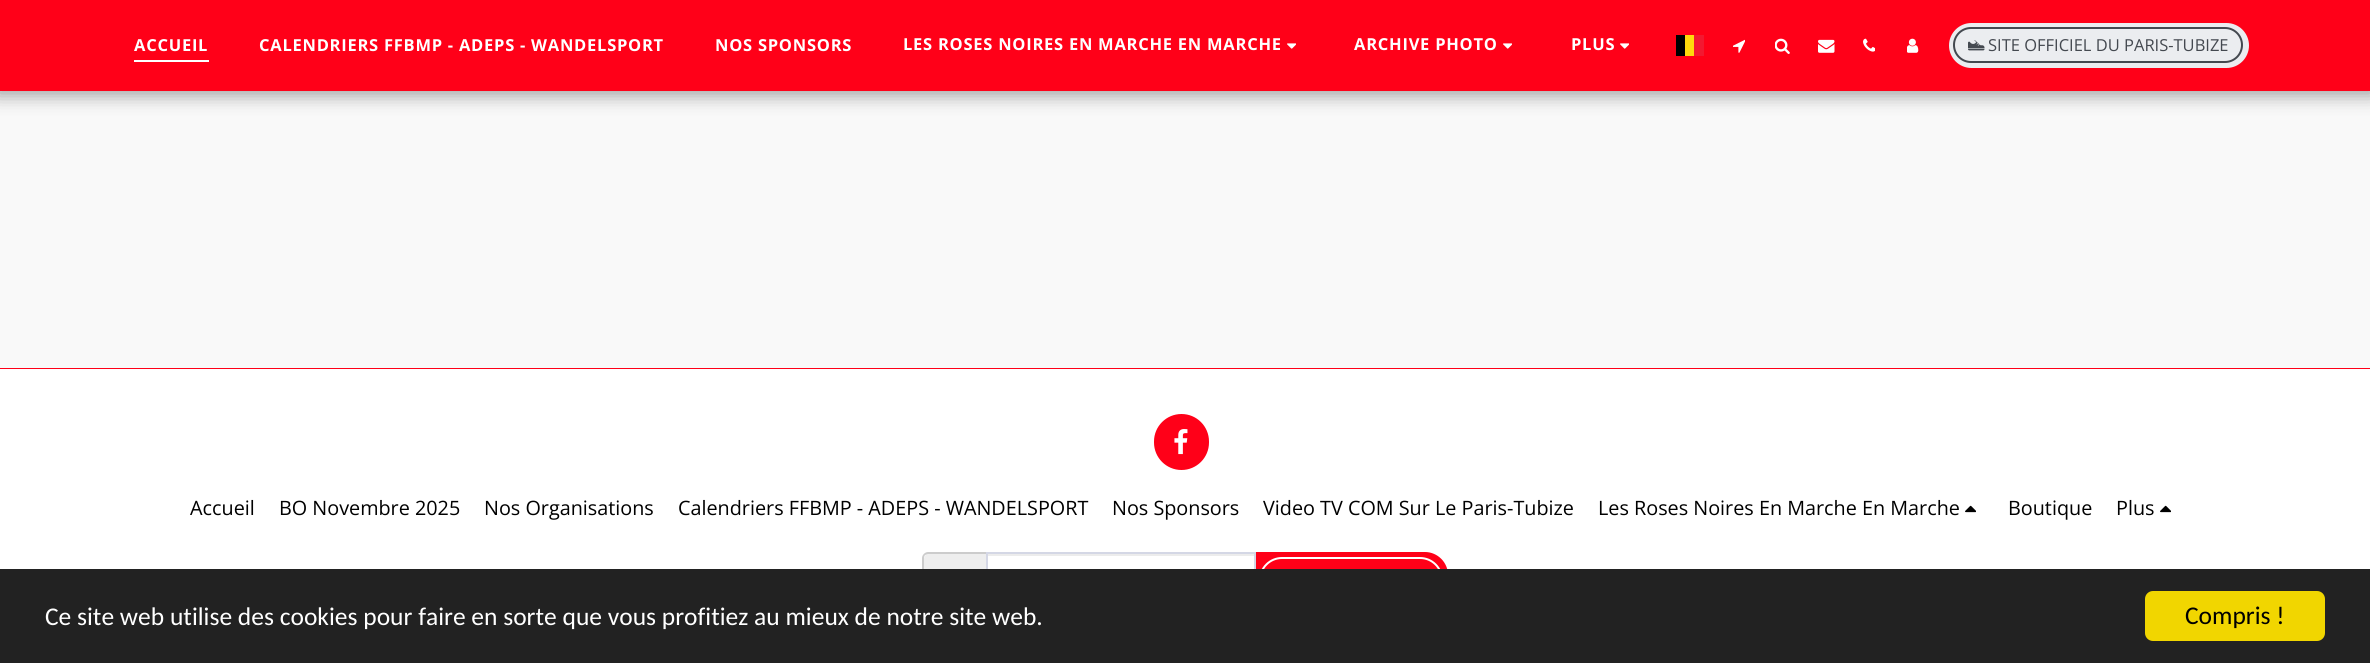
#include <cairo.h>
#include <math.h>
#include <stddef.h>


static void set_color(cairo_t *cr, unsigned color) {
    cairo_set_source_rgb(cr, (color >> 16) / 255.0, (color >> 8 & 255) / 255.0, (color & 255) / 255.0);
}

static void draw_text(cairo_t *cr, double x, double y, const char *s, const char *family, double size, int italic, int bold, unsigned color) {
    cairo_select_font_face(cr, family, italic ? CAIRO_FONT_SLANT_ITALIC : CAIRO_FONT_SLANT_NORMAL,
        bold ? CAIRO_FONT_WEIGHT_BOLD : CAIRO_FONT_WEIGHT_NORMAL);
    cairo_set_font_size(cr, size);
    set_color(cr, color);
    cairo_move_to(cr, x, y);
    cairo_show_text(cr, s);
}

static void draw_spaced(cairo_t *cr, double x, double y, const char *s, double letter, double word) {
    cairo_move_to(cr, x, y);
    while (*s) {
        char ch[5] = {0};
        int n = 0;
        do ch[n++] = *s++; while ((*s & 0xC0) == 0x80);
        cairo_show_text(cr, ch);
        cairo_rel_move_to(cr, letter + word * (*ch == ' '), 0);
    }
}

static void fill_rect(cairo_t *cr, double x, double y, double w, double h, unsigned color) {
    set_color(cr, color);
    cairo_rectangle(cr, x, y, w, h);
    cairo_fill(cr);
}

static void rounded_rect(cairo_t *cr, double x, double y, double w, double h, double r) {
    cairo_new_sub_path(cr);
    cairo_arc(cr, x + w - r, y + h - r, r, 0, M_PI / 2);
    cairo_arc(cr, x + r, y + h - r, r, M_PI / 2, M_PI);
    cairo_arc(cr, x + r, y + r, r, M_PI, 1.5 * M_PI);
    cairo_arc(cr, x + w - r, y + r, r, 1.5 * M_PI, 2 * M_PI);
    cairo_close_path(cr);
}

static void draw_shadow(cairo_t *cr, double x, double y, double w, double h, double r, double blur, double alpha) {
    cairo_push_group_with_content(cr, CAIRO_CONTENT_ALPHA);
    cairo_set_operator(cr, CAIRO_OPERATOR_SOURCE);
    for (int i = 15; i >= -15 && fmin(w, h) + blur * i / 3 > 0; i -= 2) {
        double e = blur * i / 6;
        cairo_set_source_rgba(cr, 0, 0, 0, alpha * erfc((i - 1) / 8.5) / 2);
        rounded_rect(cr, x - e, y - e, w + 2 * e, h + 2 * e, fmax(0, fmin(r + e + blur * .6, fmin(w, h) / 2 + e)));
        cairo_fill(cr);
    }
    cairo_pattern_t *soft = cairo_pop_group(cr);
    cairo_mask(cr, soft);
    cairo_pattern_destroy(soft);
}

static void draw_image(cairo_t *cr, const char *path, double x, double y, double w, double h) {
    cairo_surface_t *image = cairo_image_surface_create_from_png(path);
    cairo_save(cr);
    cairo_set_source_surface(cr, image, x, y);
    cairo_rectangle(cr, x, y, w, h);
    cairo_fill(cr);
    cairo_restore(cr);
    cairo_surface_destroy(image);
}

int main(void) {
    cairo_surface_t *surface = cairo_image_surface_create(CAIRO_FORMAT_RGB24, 2370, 663);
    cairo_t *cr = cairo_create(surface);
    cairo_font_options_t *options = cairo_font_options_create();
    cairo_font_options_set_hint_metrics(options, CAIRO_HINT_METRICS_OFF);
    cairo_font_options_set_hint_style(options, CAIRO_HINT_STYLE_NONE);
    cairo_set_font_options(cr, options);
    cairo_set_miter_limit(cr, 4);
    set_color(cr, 0xF9F9F9);
    cairo_paint(cr);
    set_color(cr, 0x000000);
    draw_shadow(cr, -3, 0, 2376, 96, 0, 9, 0.35);
    fill_rect(cr, 0, 0, 2370, 91, 0xFF0018);
    cairo_select_font_face(cr, "Open Sans", CAIRO_FONT_SLANT_NORMAL, CAIRO_FONT_WEIGHT_BOLD);
    cairo_set_font_size(cr, 16.5);
    set_color(cr, 0xFFFFFF);
    draw_spaced(cr, 134, 51, "ACCUEIL", 0.75, 0);
    fill_rect(cr, 134, 60, 75, 2, 0xFFFFFF);
    draw_spaced(cr, 259, 51, "CALENDRIERS FFBMP - ADEPS - WANDELSPORT", 0.75, 0);
    draw_spaced(cr, 715, 51, "NOS SPONSORS", 0.75, 0);
    draw_spaced(cr, 903, 50, "LES ROSES NOIRES EN MARCHE EN MARCHE", 0.75, 0);
    draw_image(cr, "assets/img1.png", 1287, 43, 9, 6);
    draw_spaced(cr, 1354, 50, "ARCHIVE PHOTO", 0.75, 0);
    draw_image(cr, "assets/img1.png", 1503, 43, 9, 6);
    draw_spaced(cr, 1571, 50, "PLUS", 0.75, 0);
    draw_image(cr, "assets/img1.png", 1620, 43, 9, 6);
    fill_rect(cr, 1676, 35, 9, 21, 0x000001);
    fill_rect(cr, 1685, 35, 9, 21, 0xFFD90C);
    fill_rect(cr, 1694, 35, 10, 21, 0xF31830);
    draw_image(cr, "assets/img2.png", 1733, 39, 12, 14);
    draw_image(cr, "assets/img3.png", 1775, 38, 15, 16);
    draw_image(cr, "assets/img4.png", 1818, 39, 17, 14);
    draw_image(cr, "assets/img5.png", 1863, 38, 12, 14);
    draw_image(cr, "assets/img6.png", 1907, 38, 12, 15);
    set_color(cr, 0xEBEDF0);
    rounded_rect(cr, 1949, 23, 300, 45, 22.5);
    cairo_fill(cr);
    rounded_rect(cr, 1954, 28, 288, 34, 17);
    set_color(cr, 0x444950);
    cairo_stroke(cr);
    draw_image(cr, "assets/img7.png", 1968, 40, 17, 11);
    draw_text(cr, 1988, 51, "SITE OFFICIEL DU PARIS-TUBIZE", "Open Sans", 16.5, 0, 0, 0x444950);
    fill_rect(cr, 0, 368, 2370, 1, 0xFF0018);
    fill_rect(cr, 0, 369, 2370, 200, 0xFFFFFF);
    set_color(cr, 0xFF0018);
    rounded_rect(cr, 1155, 415, 53, 54, 26.5);
    cairo_fill_preserve(cr);
    cairo_stroke(cr);
    draw_image(cr, "assets/img8.png", 1174, 429, 14, 26);
    draw_text(cr, 190, 515, "Accueil", "Open Sans", 19.8, 0, 0, 0x000000);
    draw_text(cr, 279, 515, "BO Novembre 2025", "Open Sans", 19.8, 0, 0, 0x000000);
    draw_text(cr, 484, 515, "Nos Organisations", "Open Sans", 19.8, 0, 0, 0x000000);
    draw_text(cr, 678, 515, "Calendriers FFBMP - ADEPS - WANDELSPORT", "Open Sans", 19.8, 0, 0, 0x000000);
    draw_text(cr, 1112, 515, "Nos Sponsors", "Open Sans", 19.8, 0, 0, 0x000000);
    draw_text(cr, 1263, 515, "Video TV COM Sur Le Paris-Tubize", "Open Sans", 19.8, 0, 0, 0x000000);
    draw_text(cr, 1598, 515, "Les Roses Noires En Marche En Marche", "Open Sans", 19.8, 0, 0, 0x000000);
    draw_image(cr, "assets/img9.png", 1965, 505, 11, 8);
    draw_text(cr, 2008, 515, "Boutique", "Open Sans", 19.8, 0, 0, 0x000000);
    draw_text(cr, 2116, 515, "Plus", "Open Sans", 19.8, 0, 0, 0x000000);
    draw_image(cr, "assets/img9.png", 2160, 505, 11, 8);
    set_color(cr, 0xEEEEEE);
    cairo_new_path(cr);
    cairo_move_to(cr, 929, 554);
    cairo_line_to(cr, 986, 554);
    cairo_line_to(cr, 986, 627);
    cairo_line_to(cr, 929, 627);
    cairo_curve_to(cr, 926, 627, 924, 625, 924, 622);
    cairo_line_to(cr, 924, 559);
    cairo_curve_to(cr, 924, 556, 926, 554, 929, 554);
    cairo_close_path(cr);
    cairo_fill(cr);
    set_color(cr, 0xCCCCCC);
    cairo_set_fill_rule(cr, CAIRO_FILL_RULE_EVEN_ODD);
    cairo_new_path(cr);
    cairo_move_to(cr, 928, 552);
    cairo_line_to(cr, 986, 552);
    cairo_line_to(cr, 986, 628);
    cairo_line_to(cr, 928, 628);
    cairo_curve_to(cr, 925, 628, 922, 626, 922, 622);
    cairo_line_to(cr, 922, 558);
    cairo_curve_to(cr, 922, 555, 925, 552, 928, 552);
    cairo_close_path(cr);
    cairo_move_to(cr, 928, 554);
    cairo_line_to(cr, 986, 554);
    cairo_line_to(cr, 986, 627);
    cairo_curve_to(cr, 978, 627, 929, 628, 926, 626);
    cairo_line_to(cr, 924, 623);
    cairo_line_to(cr, 924, 557);
    cairo_line_to(cr, 925, 555);
    cairo_close_path(cr);
    cairo_fill(cr);
    fill_rect(cr, 987, 554, 267, 2, 0xECECEC);
    set_color(cr, 0xFF0018);
    cairo_new_path(cr);
    cairo_move_to(cr, 1255, 553);
    cairo_line_to(cr, 1425, 553);
    cairo_curve_to(cr, 1437, 553, 1447, 563, 1447, 575);
    cairo_line_to(cr, 1447, 606);
    cairo_curve_to(cr, 1447, 618, 1437, 628, 1425, 628);
    cairo_line_to(cr, 1255, 628);
    cairo_close_path(cr);
    cairo_fill_preserve(cr);
    cairo_stroke(cr);
    cairo_rectangle(cr, 987, 553, 268, 75);
    set_color(cr, 0xD4D7E5);
    cairo_stroke(cr);
    rounded_rect(cr, 1260, 558, 182, 65, 22);
    set_color(cr, 0xFFFFFF);
    cairo_stroke(cr);
    fill_rect(cr, 0, 569, 2370, 94, 0x222222);
    draw_text(cr, 45, 625, "Ce site web utilise des cookies pour faire en sorte que vous profitiez au mieux de notre site web.", "Carlito", 25.5, 0, 0, 0xFFFFFF);
    set_color(cr, 0xF1D600);
    rounded_rect(cr, 2145, 591, 180, 50, 8);
    cairo_fill(cr);
    draw_text(cr, 2185, 624, "Compris !", "Carlito", 25.5, 0, 0, 0x000000);
    cairo_surface_write_to_png(surface, "output.png");
    cairo_font_options_destroy(options);
    cairo_destroy(cr);
    cairo_surface_destroy(surface);
    return 0;
}
